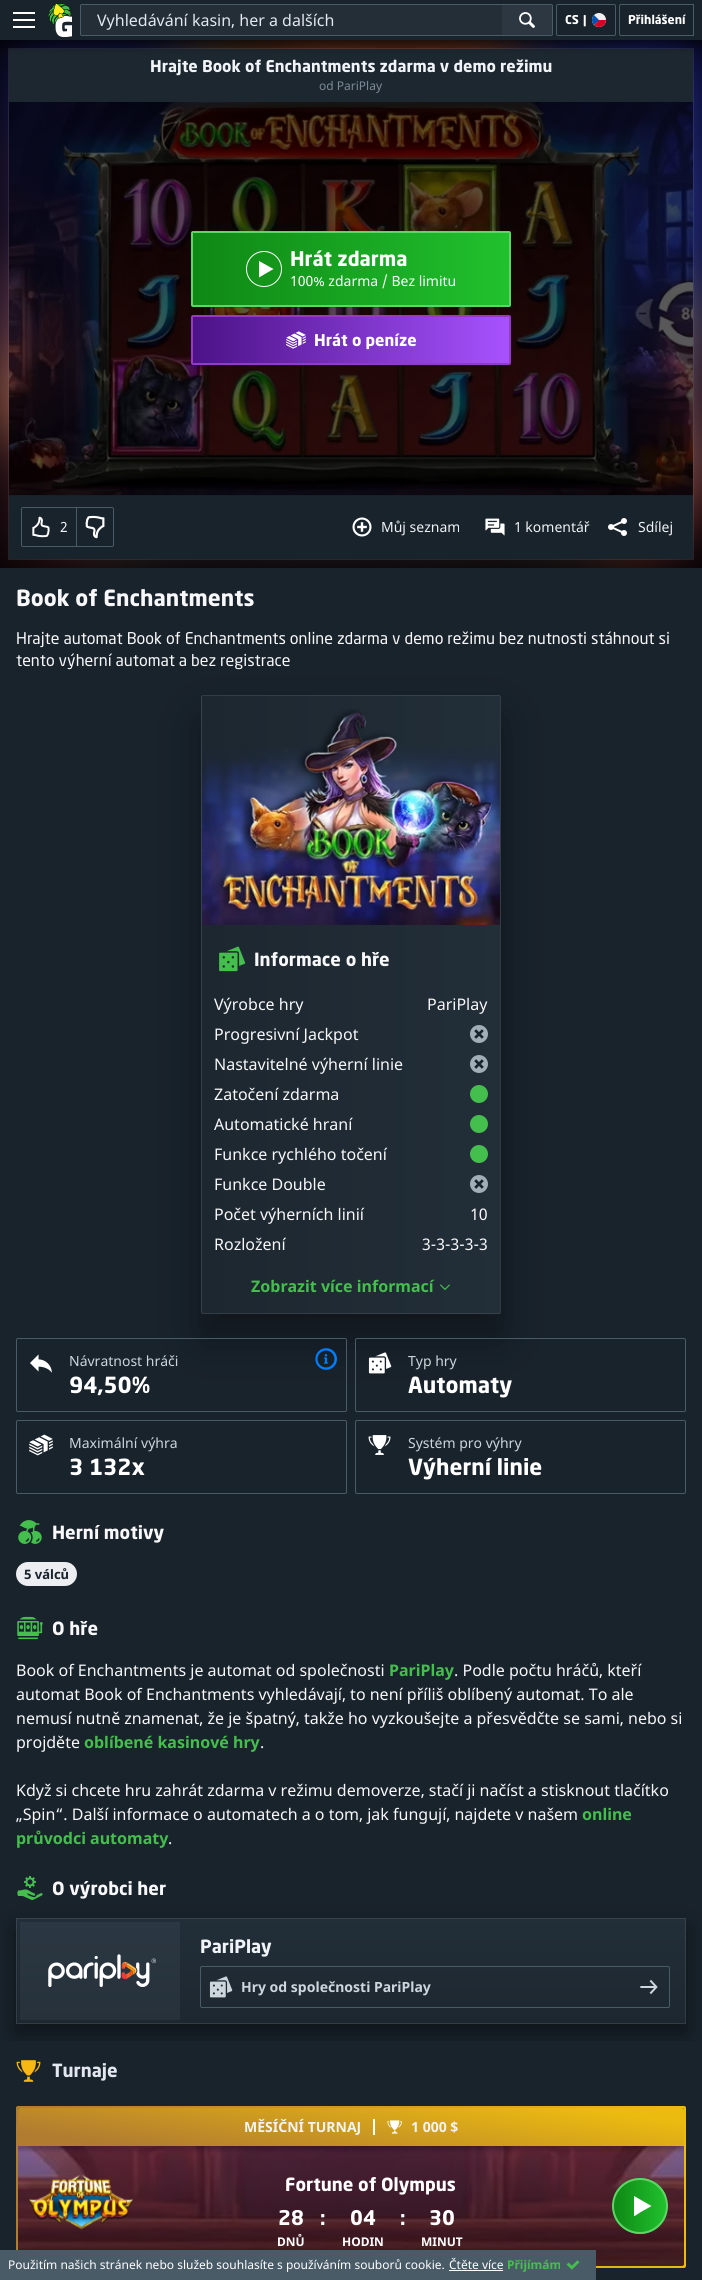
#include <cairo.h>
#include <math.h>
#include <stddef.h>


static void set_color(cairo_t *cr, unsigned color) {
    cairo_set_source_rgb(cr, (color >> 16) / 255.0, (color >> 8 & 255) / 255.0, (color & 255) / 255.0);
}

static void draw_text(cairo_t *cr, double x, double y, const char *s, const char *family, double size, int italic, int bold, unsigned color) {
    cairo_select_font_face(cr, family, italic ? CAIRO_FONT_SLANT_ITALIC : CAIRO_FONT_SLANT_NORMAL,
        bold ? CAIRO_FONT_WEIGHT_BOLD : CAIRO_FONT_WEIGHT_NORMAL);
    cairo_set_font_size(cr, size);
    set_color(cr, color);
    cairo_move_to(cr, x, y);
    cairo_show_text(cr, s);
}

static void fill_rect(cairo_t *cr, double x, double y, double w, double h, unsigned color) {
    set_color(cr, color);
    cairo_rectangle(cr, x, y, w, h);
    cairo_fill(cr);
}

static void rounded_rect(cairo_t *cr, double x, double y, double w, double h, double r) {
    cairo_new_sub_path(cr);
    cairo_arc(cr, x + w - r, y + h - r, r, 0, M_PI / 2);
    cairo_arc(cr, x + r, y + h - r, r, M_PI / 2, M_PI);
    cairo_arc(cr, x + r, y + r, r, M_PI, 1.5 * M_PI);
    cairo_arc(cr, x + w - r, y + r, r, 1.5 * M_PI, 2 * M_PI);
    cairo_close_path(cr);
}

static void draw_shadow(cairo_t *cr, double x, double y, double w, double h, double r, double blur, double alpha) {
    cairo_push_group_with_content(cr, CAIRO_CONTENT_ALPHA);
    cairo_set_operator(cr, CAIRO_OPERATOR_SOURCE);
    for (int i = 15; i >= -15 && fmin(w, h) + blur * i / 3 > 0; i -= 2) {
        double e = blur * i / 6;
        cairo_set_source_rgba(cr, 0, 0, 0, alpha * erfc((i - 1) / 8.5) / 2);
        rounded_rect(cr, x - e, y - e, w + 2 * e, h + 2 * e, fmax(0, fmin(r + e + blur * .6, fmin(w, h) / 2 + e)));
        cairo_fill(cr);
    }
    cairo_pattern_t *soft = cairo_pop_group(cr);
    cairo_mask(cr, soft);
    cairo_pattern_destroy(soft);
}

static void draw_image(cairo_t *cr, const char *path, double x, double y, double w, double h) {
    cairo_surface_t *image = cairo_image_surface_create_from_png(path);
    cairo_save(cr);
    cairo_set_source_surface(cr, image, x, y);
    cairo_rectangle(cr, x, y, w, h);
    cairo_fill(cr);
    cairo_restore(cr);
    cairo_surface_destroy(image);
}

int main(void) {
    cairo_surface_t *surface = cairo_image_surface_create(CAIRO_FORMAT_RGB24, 702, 2280);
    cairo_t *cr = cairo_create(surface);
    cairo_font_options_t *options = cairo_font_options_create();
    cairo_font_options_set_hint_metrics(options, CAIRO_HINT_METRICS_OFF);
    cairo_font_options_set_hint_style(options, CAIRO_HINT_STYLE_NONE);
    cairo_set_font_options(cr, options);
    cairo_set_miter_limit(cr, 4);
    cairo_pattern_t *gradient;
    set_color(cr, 0x19232C);
    cairo_paint(cr);
    fill_rect(cr, 0, 40, 702, 528, 0x000000);
    draw_image(cr, "assets/img4.png", 0, 40, 702, 528);
    cairo_rectangle(cr, 8.5, 48.5, 685, 511);
    cairo_set_source_rgba(cr, 1, 1, 1, 0.1);
    cairo_set_line_width(cr, 1);
    cairo_stroke(cr);
    fill_rect(cr, 9, 49, 684, 53, 0x1D2730);
    set_color(cr, 0x000000);
    draw_shadow(cr, 0, 5, 702, 40, 0, 5, 0.45);
    fill_rect(cr, 0, 0, 702, 40, 0x19232C);
    fill_rect(cr, 13, 12, 22, 2, 0xFFFFFF);
    fill_rect(cr, 13, 19, 22, 2, 0xFFFFFF);
    fill_rect(cr, 13, 26, 22, 2, 0xFFFFFF);
    draw_image(cr, "assets/img1.png", 48, 3, 24, 34);
    set_color(cr, 0x232E37);
    rounded_rect(cr, 80.5, 4.5, 472, 31, 1.5);
    cairo_fill_preserve(cr);
    set_color(cr, 0x4A5B68);
    cairo_stroke(cr);
    draw_text(cr, 97, 26, "Vyhledávání kasin, her a dalších", "Noto Sans", 16, 0, 0, 0xE3E7EF);
    set_color(cr, 0x2C3741);
    cairo_new_path(cr);
    cairo_move_to(cr, 502, 5);
    cairo_line_to(cr, 550, 5);
    cairo_curve_to(cr, 551, 5, 552, 6, 552, 7);
    cairo_line_to(cr, 552, 33);
    cairo_curve_to(cr, 552, 34, 551, 35, 550, 35);
    cairo_line_to(cr, 502, 35);
    cairo_close_path(cr);
    cairo_fill(cr);
    draw_image(cr, "assets/img2.png", 519, 12, 16, 16);
    rounded_rect(cr, 556.5, 4.5, 59, 31, 1.5);
    set_color(cr, 0x4A5B68);
    cairo_stroke(cr);
    draw_text(cr, 565, 24, "CS", "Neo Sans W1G", 12, 0, 1, 0xFFFFFF);
    draw_text(cr, 583, 24, "|", "Neo Sans W1G", 12, 0, 1, 0xFFFFFF);
    draw_image(cr, "assets/img3.png", 592, 13, 14, 14);
    cairo_new_path(cr);
    cairo_move_to(cr, 621, 4.5);
    cairo_line_to(cr, 693.5, 4.5);
    cairo_line_to(cr, 693.5, 35.5);
    cairo_line_to(cr, 621, 35.5);
    cairo_curve_to(cr, 620, 35.5, 619.5, 35, 619.5, 34);
    cairo_line_to(cr, 619.5, 6);
    cairo_curve_to(cr, 619.5, 5, 620, 4.5, 621, 4.5);
    cairo_close_path(cr);
    set_color(cr, 0x4A5B68);
    cairo_stroke(cr);
    draw_text(cr, 628, 24, "Přihlášení", "Neo Sans W1G", 12, 0, 1, 0xFFFFFF);
    draw_text(cr, 150, 72, "Hrajte Book of Enchantments zdarma v demo režimu", "Neo Sans W1G", 16, 0, 1, 0xF0F3F7);
    draw_text(cr, 319, 90, "od PariPlay", "Noto Sans", 12, 0, 0, 0x7B8C98);
    fill_rect(cr, 9, 102, 684, 393, 0x000000);
    fill_rect(cr, 9, 495, 684, 64, 0x19232C);
    draw_image(cr, "assets/img5.png", 8, 102, 686, 394);
    gradient = cairo_pattern_create_linear(509, 269, 193, 269);
    cairo_pattern_add_color_stop_rgba(gradient, 0, 0.129, 0.757, 0.18, 1);
    cairo_pattern_add_color_stop_rgba(gradient, 1, 0.059, 0.533, 0.082, 1);
    cairo_set_source(cr, gradient);
    cairo_pattern_destroy(gradient);
    cairo_rectangle(cr, 193, 233, 316, 72);
    cairo_fill(cr);
    rounded_rect(cr, 192, 232, 318, 74, 1);
    set_color(cr, 0x5DD667);
    cairo_set_line_width(cr, 2);
    cairo_stroke(cr);
    cairo_arc(cr, 264, 269, 17.5, 0, 2 * M_PI);
    set_color(cr, 0xFFFFFF);
    cairo_set_line_width(cr, 1);
    cairo_stroke(cr);
    cairo_new_path(cr);
    cairo_move_to(cr, 259, 261);
    cairo_line_to(cr, 259, 274.5);
    cairo_curve_to(cr, 259, 279, 258.5, 277.5, 264, 274.5);
    cairo_line_to(cr, 273.5, 269);
    cairo_close_path(cr);
    cairo_fill(cr);
    draw_text(cr, 290, 266, "Hrát zdarma", "Neo Sans W1G", 20, 0, 1, 0xFFFFFF);
    draw_text(cr, 290, 286, "100% zdarma / Bez limitu", "Noto Sans", 14, 0, 0, 0xFFFFFF);
    gradient = cairo_pattern_create_linear(193, 340, 509, 340);
    cairo_pattern_add_color_stop_rgba(gradient, 0, 0.298, 0.071, 0.529, 1);
    cairo_pattern_add_color_stop_rgba(gradient, 1, 0.655, 0.322, 1, 1);
    cairo_set_source(cr, gradient);
    cairo_pattern_destroy(gradient);
    cairo_rectangle(cr, 193, 317, 316, 46);
    cairo_fill(cr);
    rounded_rect(cr, 192, 316, 318, 48, 1);
    set_color(cr, 0x9539C7);
    cairo_set_line_width(cr, 2);
    cairo_stroke(cr);
    draw_image(cr, "assets/img6.png", 286, 331, 20, 18);
    draw_text(cr, 314, 346, "Hrát o peníze", "Neo Sans W1G", 16, 0, 1, 0xFFFFFF);
    rounded_rect(cr, 21.5, 507.5, 92, 39, 1.5);
    set_color(cr, 0x4A5B68);
    cairo_set_line_width(cr, 1);
    cairo_stroke(cr);
    draw_image(cr, "assets/img7.png", 32, 516, 18, 22);
    draw_text(cr, 60, 532, "2", "Noto Sans", 14, 0, 0, 0xF0F3F7);
    fill_rect(cr, 76, 508, 1, 38, 0x4A5B68);
    draw_image(cr, "assets/img8.png", 85, 515, 20, 24);
    draw_image(cr, "assets/img9.png", 352, 517, 20, 20);
    draw_text(cr, 381, 532, "Můj seznam", "Noto Sans", 14, 0, 0, 0xF0F3F7);
    draw_image(cr, "assets/img10.png", 485, 518, 20, 18);
    draw_text(cr, 514, 532, "1 komentář", "Noto Sans", 14, 0, 0, 0xF0F3F7);
    draw_image(cr, "assets/img11.png", 608, 518, 19, 18);
    draw_text(cr, 638, 532, "Sdílej", "Noto Sans", 14, 0, 0, 0xF0F3F7);
    draw_text(cr, 16, 606, "Book of Enchantments", "Neo Sans W1G", 22, 0, 1, 0xF8F8FA);
    set_color(cr, 0x000000);
    draw_shadow(cr, 201, 719, 300, 619, 2, 24, 0.4);
    draw_text(cr, 16, 644, "Hrajte automat Book of Enchantments online zdarma v demo režimu bez nutnosti stáhnout si", "Neo Sans W1G", 16, 0, 0, 0xF8F8FA);
    draw_text(cr, 16, 666, "tento výherní automat a bez registrace", "Neo Sans W1G", 16, 0, 0, 0xF8F8FA);
    cairo_save(cr);
    rounded_rect(cr, 201, 695, 300, 619, 2);
    cairo_clip(cr);
    gradient = cairo_pattern_create_linear(202, 1005, -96, 1005);
    cairo_pattern_add_color_stop_rgba(gradient, 0, 0.133, 0.18, 0.22, 1);
    cairo_pattern_add_color_stop_rgba(gradient, 1, 0.114, 0.153, 0.188, 1);
    cairo_set_source(cr, gradient);
    cairo_pattern_destroy(gradient);
    cairo_rectangle(cr, 201, 695, 1, 619);
    cairo_fill(cr);
    gradient = cairo_pattern_create_linear(500, 1005, 202, 1005);
    cairo_pattern_add_color_stop_rgba(gradient, 0, 0.133, 0.18, 0.22, 1);
    cairo_pattern_add_color_stop_rgba(gradient, 1, 0.114, 0.153, 0.188, 1);
    cairo_set_source(cr, gradient);
    cairo_pattern_destroy(gradient);
    cairo_rectangle(cr, 202, 695, 298, 619);
    cairo_fill(cr);
    gradient = cairo_pattern_create_linear(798, 1005, 500, 1005);
    cairo_pattern_add_color_stop_rgba(gradient, 0, 0.133, 0.18, 0.22, 1);
    cairo_pattern_add_color_stop_rgba(gradient, 1, 0.114, 0.153, 0.188, 1);
    cairo_set_source(cr, gradient);
    cairo_pattern_destroy(gradient);
    cairo_rectangle(cr, 500, 695, 1, 619);
    cairo_fill(cr);
    cairo_restore(cr);
    rounded_rect(cr, 201.5, 695.5, 299, 618, 1.5);
    cairo_set_source_rgba(cr, 1, 1, 1, 0.1);
    cairo_stroke(cr);
    draw_image(cr, "assets/img12.png", 202, 709, 298, 216);
    draw_image(cr, "assets/img13.png", 219, 946, 27, 26);
    draw_text(cr, 254, 966, "Informace o hře", "Neo Sans W1G", 18, 0, 1, 0xF8F8FA);
    draw_text(cr, 214, 1010, "Výrobce hry", "Noto Sans", 16, 0, 0, 0xF8F8FA);
    draw_text(cr, 427, 1010, "PariPlay", "Noto Sans", 16, 0, 0, 0xF8F8FA);
    draw_text(cr, 214, 1040, "Progresivní Jackpot", "Noto Sans", 16, 0, 0, 0xF8F8FA);
    set_color(cr, 0xA2AEB7);
    cairo_new_path(cr);
    cairo_arc(cr, 479, 1034, 9, 0, 2 * M_PI);
    cairo_fill(cr);
    draw_image(cr, "assets/img14.png", 474, 1029, 10, 10);
    draw_text(cr, 214, 1070, "Nastavitelné výherní linie", "Noto Sans", 16, 0, 0, 0xF8F8FA);
    set_color(cr, 0xA2AEB7);
    cairo_new_path(cr);
    cairo_arc(cr, 479, 1064, 9, 0, 2 * M_PI);
    cairo_fill(cr);
    draw_image(cr, "assets/img14.png", 474, 1059, 10, 10);
    draw_text(cr, 214, 1100, "Zatočení zdarma", "Noto Sans", 16, 0, 0, 0xF8F8FA);
    set_color(cr, 0x44BE4C);
    cairo_new_path(cr);
    cairo_arc(cr, 479, 1094, 9, 0, 2 * M_PI);
    cairo_fill(cr);
    draw_text(cr, 214, 1130, "Automatické hraní", "Noto Sans", 16, 0, 0, 0xF8F8FA);
    set_color(cr, 0x44BE4C);
    cairo_new_path(cr);
    cairo_arc(cr, 479, 1124, 9, 0, 2 * M_PI);
    cairo_fill(cr);
    draw_text(cr, 214, 1160, "Funkce rychlého točení", "Noto Sans", 16, 0, 0, 0xF8F8FA);
    set_color(cr, 0x44BE4C);
    cairo_new_path(cr);
    cairo_arc(cr, 479, 1154, 9, 0, 2 * M_PI);
    cairo_fill(cr);
    draw_text(cr, 214, 1190, "Funkce Double", "Noto Sans", 16, 0, 0, 0xF8F8FA);
    set_color(cr, 0xA2AEB7);
    cairo_new_path(cr);
    cairo_arc(cr, 479, 1184, 9, 0, 2 * M_PI);
    cairo_fill(cr);
    draw_image(cr, "assets/img14.png", 474, 1179, 10, 10);
    draw_text(cr, 214, 1220, "Počet výherních linií", "Noto Sans", 16, 0, 0, 0xF8F8FA);
    draw_text(cr, 470, 1220, "10", "Noto Sans", 16, 0, 0, 0xF8F8FA);
    draw_text(cr, 214, 1250, "Rozložení", "Noto Sans", 16, 0, 0, 0xF8F8FA);
    draw_text(cr, 422, 1250, "3-3-3-3-3", "Noto Sans", 16, 0, 0, 0xF8F8FA);
    draw_text(cr, 251, 1292, "Zobrazit více informací", "Noto Sans", 16, 0, 1, 0x44BE4C);
    draw_image(cr, "assets/img15.png", 440, 1284, 10, 6);
    draw_image(cr, "assets/img16.png", 18, 1520, 24, 24);
    draw_text(cr, 52, 1539, "Herní motivy", "Neo Sans W1G", 18, 0, 1, 0xF8F8FA);
    set_color(cr, 0xECEEF2);
    rounded_rect(cr, 16, 1562, 61, 24, 12);
    cairo_fill(cr);
    draw_text(cr, 24, 1579, "5 válců", "Noto Sans", 13, 0, 1, 0x19232C);
    rounded_rect(cr, 16.5, 1338.5, 330, 73, 1.5);
    set_color(cr, 0x4A5B68);
    cairo_stroke(cr);
    draw_image(cr, "assets/img17.png", 30, 1354, 22, 19);
    draw_text(cr, 69, 1366, "Návratnost hráči", "Noto Sans", 14, 0, 0, 0xCDD6DD);
    draw_text(cr, 69, 1393, "94,50%", "Neo Sans W1G", 22, 0, 1, 0xFFFFFF);
    draw_image(cr, "assets/img18.png", 315, 1348, 22, 22);
    rounded_rect(cr, 355.5, 1338.5, 330, 73, 1.5);
    set_color(cr, 0x4A5B68);
    cairo_stroke(cr);
    draw_image(cr, "assets/img19.png", 368, 1352, 24, 22);
    draw_text(cr, 408, 1366, "Typ hry", "Noto Sans", 14, 0, 0, 0xCDD6DD);
    draw_text(cr, 408, 1393, "Automaty", "Neo Sans W1G", 22, 0, 1, 0xFFFFFF);
    rounded_rect(cr, 16.5, 1420.5, 330, 73, 1.5);
    set_color(cr, 0x4A5B68);
    cairo_stroke(cr);
    draw_image(cr, "assets/img20.png", 29, 1434, 24, 22);
    draw_text(cr, 69, 1448, "Maximální výhra", "Noto Sans", 14, 0, 0, 0xCDD6DD);
    draw_text(cr, 69, 1475, "3 132x", "Neo Sans W1G", 22, 0, 1, 0xFFFFFF);
    rounded_rect(cr, 355.5, 1420.5, 330, 73, 1.5);
    set_color(cr, 0x4A5B68);
    cairo_stroke(cr);
    draw_image(cr, "assets/img21.png", 368, 1435, 23, 20);
    draw_text(cr, 408, 1448, "Systém pro výhry", "Noto Sans", 14, 0, 0, 0xCDD6DD);
    draw_text(cr, 408, 1475, "Výherní linie", "Neo Sans W1G", 22, 0, 1, 0xFFFFFF);
    draw_image(cr, "assets/img22.png", 17, 1616, 26, 24);
    draw_text(cr, 52, 1635, "O hře", "Neo Sans W1G", 18, 0, 1, 0xF8F8FA);
    draw_text(cr, 16, 1676, "Book of Enchantments je automat od společnosti", "Noto Sans", 16, 0, 0, 0xF8F8FA);
    draw_text(cr, 389, 1676, "PariPlay", "Noto Sans", 16, 0, 1, 0x44BE4C);
    draw_text(cr, 454, 1676, ". Podle počtu hráčů, kteří", "Noto Sans", 16, 0, 0, 0xF8F8FA);
    draw_text(cr, 16, 1700, "automat Book of Enchantments vyhledávají, to není příliš oblíbený automat. To ale", "Noto Sans", 16, 0, 0, 0xF8F8FA);
    draw_text(cr, 16, 1724, "nemusí nutně znamenat, že je špatný, takže ho vyzkoušejte a přesvědčte se sami, nebo si", "Noto Sans", 16, 0, 0, 0xF8F8FA);
    draw_text(cr, 16, 1748, "projděte", "Noto Sans", 16, 0, 0, 0xF8F8FA);
    draw_text(cr, 84, 1748, "oblíbené kasinové hry", "Noto Sans", 16, 0, 1, 0x44BE4C);
    draw_text(cr, 260, 1748, ".", "Noto Sans", 16, 0, 0, 0xF8F8FA);
    draw_text(cr, 16, 1796, "Když si chcete hru zahrát zdarma v režimu demoverze, stačí ji načíst a stisknout tlačítko", "Noto Sans", 16, 0, 0, 0xF8F8FA);
    draw_text(cr, 16, 1820, "„Spin“. Další informace o automatech a o tom, jak fungují, najdete v našem", "Noto Sans", 16, 0, 0, 0xF8F8FA);
    draw_text(cr, 582, 1820, "online", "Noto Sans", 16, 0, 1, 0x44BE4C);
    draw_text(cr, 16, 1844, "průvodci automaty", "Noto Sans", 16, 0, 1, 0x44BE4C);
    draw_text(cr, 168, 1844, ".", "Noto Sans", 16, 0, 0, 0xF8F8FA);
    cairo_save(cr);
    cairo_rectangle(cr, 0, 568, 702, 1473);
    cairo_clip(cr);
    set_color(cr, 0x000000);
    draw_shadow(cr, 16, 1928, 670, 106, 0, 12.5, 0.45);
    cairo_restore(cr);
    draw_image(cr, "assets/img23.png", 17, 1876, 26, 24);
    draw_text(cr, 52, 1895, "O výrobci her", "Neo Sans W1G", 18, 0, 1, 0xF8F8FA);
    gradient = cairo_pattern_create_linear(351, 1918, 351, 2024);
    cairo_pattern_add_color_stop_rgba(gradient, 0, 0.133, 0.18, 0.22, 1);
    cairo_pattern_add_color_stop_rgba(gradient, 1, 0.114, 0.153, 0.188, 1);
    cairo_set_source(cr, gradient);
    cairo_pattern_destroy(gradient);
    cairo_rectangle(cr, 16, 1918, 670, 106);
    cairo_fill(cr);
    gradient = cairo_pattern_create_linear(351, 1918, 351, 2024);
    cairo_pattern_add_color_stop_rgba(gradient, 0, 0.169, 0.216, 0.259, 1);
    cairo_pattern_add_color_stop_rgba(gradient, 1, 0.149, 0.192, 0.227, 1);
    cairo_set_source(cr, gradient);
    cairo_pattern_destroy(gradient);
    cairo_rectangle(cr, 20, 1922, 160, 98);
    cairo_fill(cr);
    cairo_rectangle(cr, 16.5, 1918.5, 669, 105);
    cairo_set_source_rgba(cr, 1, 1, 1, 0.1);
    cairo_stroke(cr);
    draw_image(cr, "assets/img24.png", 48, 1954, 108, 33);
    draw_text(cr, 200, 1953, "PariPlay", "Neo Sans W1G", 18, 0, 1, 0xF0F3F7);
    rounded_rect(cr, 200.5, 1966.5, 469, 41, 1.5);
    set_color(cr, 0x4A5B68);
    cairo_stroke(cr);
    draw_image(cr, "assets/img25.png", 209, 1976, 24, 22);
    draw_text(cr, 241, 1992, "Hry od společnosti PariPlay", "Noto Sans", 14, 0, 1, 0xCDD6DD);
    draw_image(cr, "assets/img26.png", 640, 1979, 18, 16);
    draw_image(cr, "assets/img27.png", 16, 2060, 25, 22);
    draw_text(cr, 52, 2077, "Turnaje", "Neo Sans W1G", 18, 0, 1, 0xE3E7EF);
    gradient = cairo_pattern_create_linear(16, 2187, 686, 2187);
    cairo_pattern_add_color_stop_rgba(gradient, 0, 0.694, 0.486, 0.188, 1);
    cairo_pattern_add_color_stop_rgba(gradient, 1, 0.922, 0.733, 0.063, 1);
    cairo_set_source(cr, gradient);
    cairo_pattern_destroy(gradient);
    rounded_rect(cr, 16, 2106, 670, 162, 2);
    cairo_fill(cr);
    draw_image(cr, "assets/img28.png", 18, 2108, 666, 158);
    gradient = cairo_pattern_create_linear(351, 2108, 351, 2266);
    cairo_pattern_add_color_stop_rgba(gradient, 0, 0, 0, 0, 0.3);
    cairo_pattern_add_color_stop_rgba(gradient, 1, 0, 0, 0, 0.7);
    cairo_set_source(cr, gradient);
    cairo_pattern_destroy(gradient);
    rounded_rect(cr, 18, 2108, 666, 158, 2);
    cairo_fill(cr);
    cairo_save(cr);
    rounded_rect(cr, 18, 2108, 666, 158, 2);
    cairo_clip(cr);
    set_color(cr, 0x000000);
    draw_shadow(cr, 18, 2112, 666, 38, 0, 2, 0.25);
    cairo_restore(cr);
    gradient = cairo_pattern_create_linear(342, 2192, 360, 2062);
    cairo_pattern_add_color_stop_rgba(gradient, 0.12, 0.694, 0.486, 0.188, 1);
    cairo_pattern_add_color_stop_rgba(gradient, 0.88, 0.922, 0.733, 0.063, 1);
    cairo_set_source(cr, gradient);
    cairo_pattern_destroy(gradient);
    cairo_new_path(cr);
    cairo_move_to(cr, 20, 2108);
    cairo_line_to(cr, 682, 2108);
    cairo_curve_to(cr, 683, 2108, 684, 2109, 684, 2110);
    cairo_line_to(cr, 684, 2146);
    cairo_line_to(cr, 18, 2146);
    cairo_line_to(cr, 18, 2110);
    cairo_curve_to(cr, 18, 2109, 19, 2108, 20, 2108);
    cairo_close_path(cr);
    cairo_fill(cr);
    draw_text(cr, 244, 2132, "MĚSÍČNÍ TURNAJ", "Noto Sans", 14, 0, 1, 0xF0F3F7);
    fill_rect(cr, 373, 2119, 2, 16, 0xFFFFFF);
    draw_image(cr, "assets/img29.png", 387, 2120, 15, 14);
    draw_text(cr, 411, 2132, "1 000 $", "Noto Sans", 14, 0, 1, 0xF0F3F7);
    draw_image(cr, "assets/img30.png", 29, 2175, 104, 55);
    draw_text(cr, 285, 2191, "Fortune of Olympus", "Neo Sans W1G", 18, 0, 1, 0xFFFFFF);
    cairo_save(cr);
    rounded_rect(cr, 612, 2178, 56, 56, 28);
    cairo_clip(cr);
    gradient = cairo_pattern_create_linear(666, 2206, 614, 2206);
    cairo_pattern_add_color_stop_rgba(gradient, 0, 0.129, 0.757, 0.18, 1);
    cairo_pattern_add_color_stop_rgba(gradient, 1, 0.059, 0.533, 0.082, 1);
    cairo_set_source(cr, gradient);
    cairo_pattern_destroy(gradient);
    cairo_rectangle(cr, 614, 2178, 52, 56);
    cairo_fill(cr);
    cairo_restore(cr);
    cairo_arc(cr, 640, 2206, 27, 0, 2 * M_PI);
    set_color(cr, 0x5DD667);
    cairo_set_line_width(cr, 2);
    cairo_stroke(cr);
    set_color(cr, 0xFFFFFF);
    cairo_new_path(cr);
    cairo_move_to(cr, 634, 2196);
    cairo_line_to(cr, 634, 2212.5);
    cairo_curve_to(cr, 634, 2218, 633.5, 2216.5, 640, 2212.5);
    cairo_line_to(cr, 651.5, 2206);
    cairo_close_path(cr);
    cairo_fill(cr);
    draw_text(cr, 278, 2225, "28", "Neo Sans W1G", 20, 0, 1, 0xFFFFFF);
    draw_text(cr, 277, 2246, "DNŮ", "Noto Sans", 12, 0, 1, 0xFFFFFF);
    draw_text(cr, 320, 2225, ":", "Neo Sans W1G", 20, 0, 1, 0xFFFFFF);
    draw_text(cr, 350, 2225, "04", "Neo Sans W1G", 20, 0, 1, 0xFFFFFF);
    draw_text(cr, 342, 2246, "HODIN", "Noto Sans", 12, 0, 1, 0xFFFFFF);
    draw_text(cr, 400, 2225, ":", "Neo Sans W1G", 20, 0, 1, 0xFFFFFF);
    draw_text(cr, 429, 2225, "30", "Neo Sans W1G", 20, 0, 1, 0xFFFFFF);
    draw_text(cr, 421, 2246, "MINUT", "Noto Sans", 12, 0, 1, 0xFFFFFF);
    fill_rect(cr, 0, 2250, 596, 30, 0x4A5B68);
    draw_text(cr, 8, 2269, "Použitím našich stránek nebo služeb souhlasíte s používáním souborů cookie.", "Noto Sans", 12, 0, 0, 0xFFFFFF);
    draw_text(cr, 449, 2269, "Čtěte více", "Noto Sans", 12, 0, 0, 0xFFFFFF);
    fill_rect(cr, 449, 2270, 54, 1, 0xFFFFFF);
    draw_text(cr, 507, 2269, "Přijímám", "Noto Sans", 12, 0, 1, 0x44BE4C);
    draw_image(cr, "assets/img31.png", 566, 2260, 14, 10);
    cairo_surface_write_to_png(surface, "output.png");
    cairo_font_options_destroy(options);
    cairo_destroy(cr);
    cairo_surface_destroy(surface);
    return 0;
}
